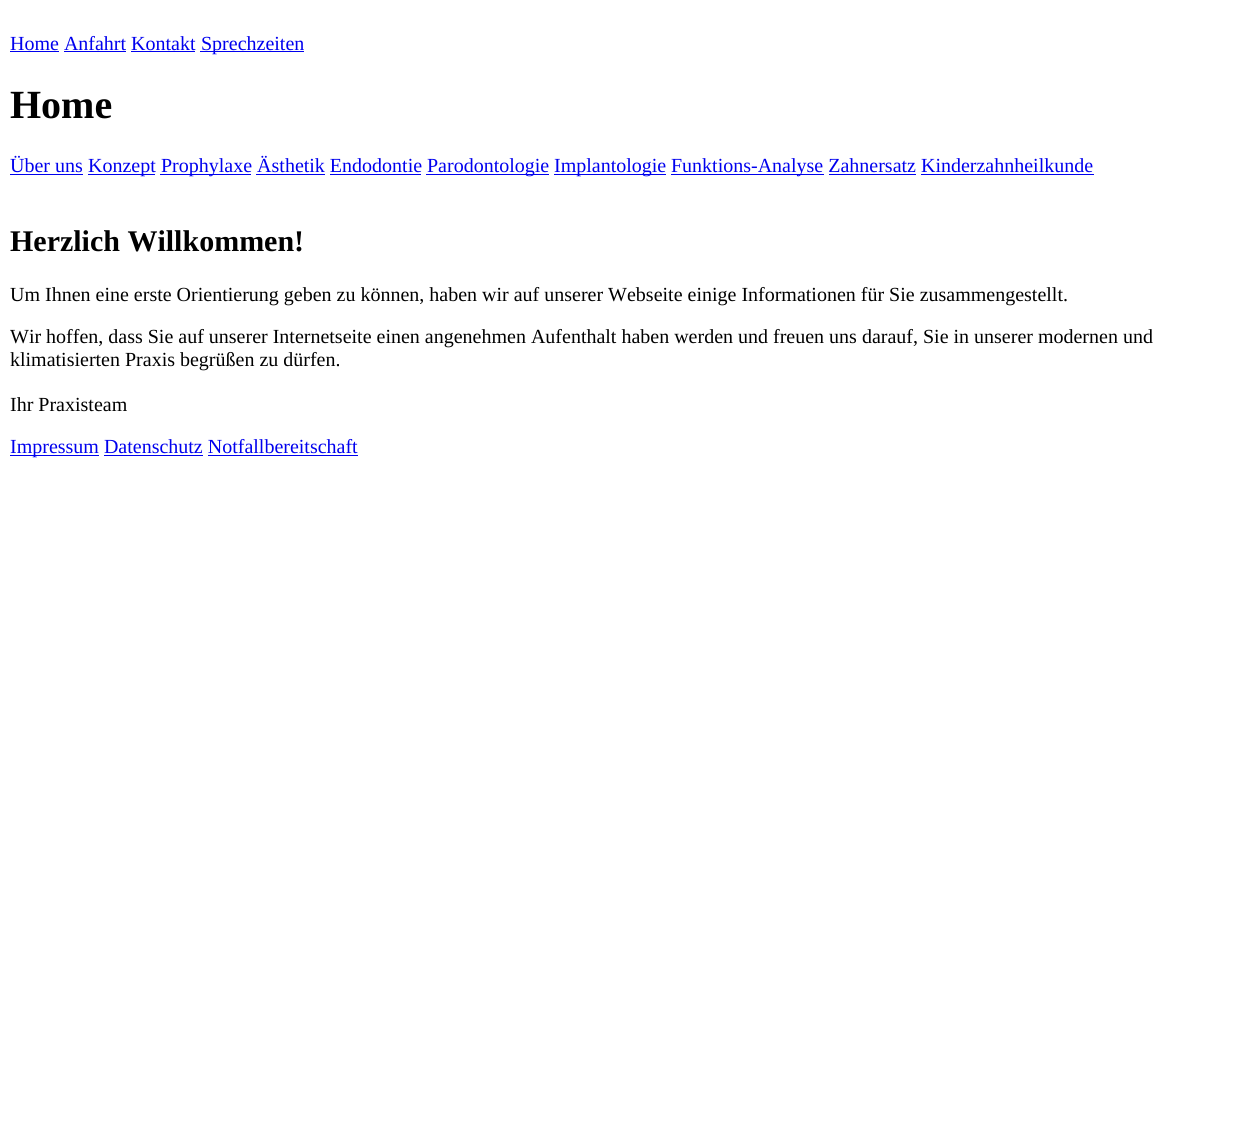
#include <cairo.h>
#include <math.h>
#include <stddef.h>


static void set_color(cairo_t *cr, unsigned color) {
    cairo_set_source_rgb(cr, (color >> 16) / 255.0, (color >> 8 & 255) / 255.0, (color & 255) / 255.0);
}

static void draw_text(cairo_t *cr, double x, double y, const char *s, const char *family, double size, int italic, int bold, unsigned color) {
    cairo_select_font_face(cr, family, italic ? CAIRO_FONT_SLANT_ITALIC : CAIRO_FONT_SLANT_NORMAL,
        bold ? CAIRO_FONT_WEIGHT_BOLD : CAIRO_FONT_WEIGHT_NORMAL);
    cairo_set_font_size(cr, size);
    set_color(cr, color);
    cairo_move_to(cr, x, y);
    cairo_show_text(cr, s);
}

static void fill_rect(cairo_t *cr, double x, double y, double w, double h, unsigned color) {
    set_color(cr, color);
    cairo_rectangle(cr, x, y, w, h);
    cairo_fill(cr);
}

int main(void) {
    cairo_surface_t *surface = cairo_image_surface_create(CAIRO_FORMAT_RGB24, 1249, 1141);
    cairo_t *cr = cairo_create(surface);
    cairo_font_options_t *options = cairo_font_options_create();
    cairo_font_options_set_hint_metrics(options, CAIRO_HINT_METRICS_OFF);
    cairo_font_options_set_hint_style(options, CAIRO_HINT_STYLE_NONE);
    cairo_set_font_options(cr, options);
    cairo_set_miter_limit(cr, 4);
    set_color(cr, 0xFFFFFF);
    cairo_paint(cr);
    draw_text(cr, 10, 50, "Home Anfahrt Kontakt", "Liberation Serif", 20, 0, 0, 0x0000EE);
    fill_rect(cr, 10, 51, 49, 1, 0x0000EE);
    fill_rect(cr, 200, 51, 104, 1, 0x0000EE);
    draw_text(cr, 201, 50, "Sprechzeiten", "Liberation Serif", 20, 0, 0, 0x0000EE);
    fill_rect(cr, 64, 51, 62, 1, 0x0000EE);
    fill_rect(cr, 131, 51, 64, 1, 0x0000EE);
    draw_text(cr, 10, 118, "Home", "Liberation Serif", 40, 0, 1, 0x000000);
    draw_text(cr, 10, 172, "Über uns", "Liberation Serif", 20, 0, 0, 0x0000EE);
    fill_rect(cr, 10, 174, 73, 1, 0x0000EE);
    fill_rect(cr, 88, 174, 67, 1, 0x0000EE);
    draw_text(cr, 88, 172, "Konzept", "Liberation Serif", 20, 0, 0, 0x0000EE);
    fill_rect(cr, 160, 174, 91, 1, 0x0000EE);
    draw_text(cr, 161, 172, "Prophylaxe Ästhetik Endodontie", "Liberation Serif", 20, 0, 0, 0x0000EE);
    fill_rect(cr, 426, 174, 123, 1, 0x0000EE);
    draw_text(cr, 427, 172, "Parodontologie", "Liberation Serif", 20, 0, 0, 0x0000EE);
    fill_rect(cr, 554, 174, 112, 1, 0x0000EE);
    draw_text(cr, 554, 172, "Implantologie", "Liberation Serif", 20, 0, 0, 0x0000EE);
    fill_rect(cr, 671, 174, 153, 1, 0x0000EE);
    draw_text(cr, 671, 172, "Funktions-Analyse Zahnersatz Kinderzahnheilkunde", "Liberation Serif", 20, 0, 0, 0x0000EE);
    fill_rect(cr, 256, 174, 69, 1, 0x0000EE);
    fill_rect(cr, 330, 174, 91, 1, 0x0000EE);
    fill_rect(cr, 829, 174, 87, 1, 0x0000EE);
    fill_rect(cr, 921, 174, 173, 1, 0x0000EE);
    draw_text(cr, 10, 251, "Herzlich Willkommen!", "Liberation Serif", 30, 0, 1, 0x000000);
    draw_text(cr, 10, 301, "Um Ihnen eine erste Orientierung geben zu können, haben wir auf unserer Webseite einige Informationen für Sie zusammengestellt.", "Liberation Serif", 20, 0, 0, 0x000000);
    draw_text(cr, 10, 343, "Wir hoffen, dass Sie auf unserer Internetseite einen angenehmen Aufenthalt haben werden und freuen uns darauf, Sie in unserer modernen und", "Liberation Serif", 20, 0, 0, 0x000000);
    draw_text(cr, 10, 366, "klimatisierten Praxis begrüßen zu dürfen.", "Liberation Serif", 20, 0, 0, 0x000000);
    draw_text(cr, 10, 411, "Ihr Praxisteam", "Liberation Serif", 20, 0, 0, 0x000000);
    fill_rect(cr, 10, 455, 89, 1, 0x0000EE);
    draw_text(cr, 10, 453, "Impressum Datenschutz Notfallbereitschaft", "Liberation Serif", 20, 0, 0, 0x0000EE);
    fill_rect(cr, 104, 455, 99, 1, 0x0000EE);
    fill_rect(cr, 208, 455, 150, 1, 0x0000EE);
    cairo_surface_write_to_png(surface, "output.png");
    cairo_font_options_destroy(options);
    cairo_destroy(cr);
    cairo_surface_destroy(surface);
    return 0;
}
